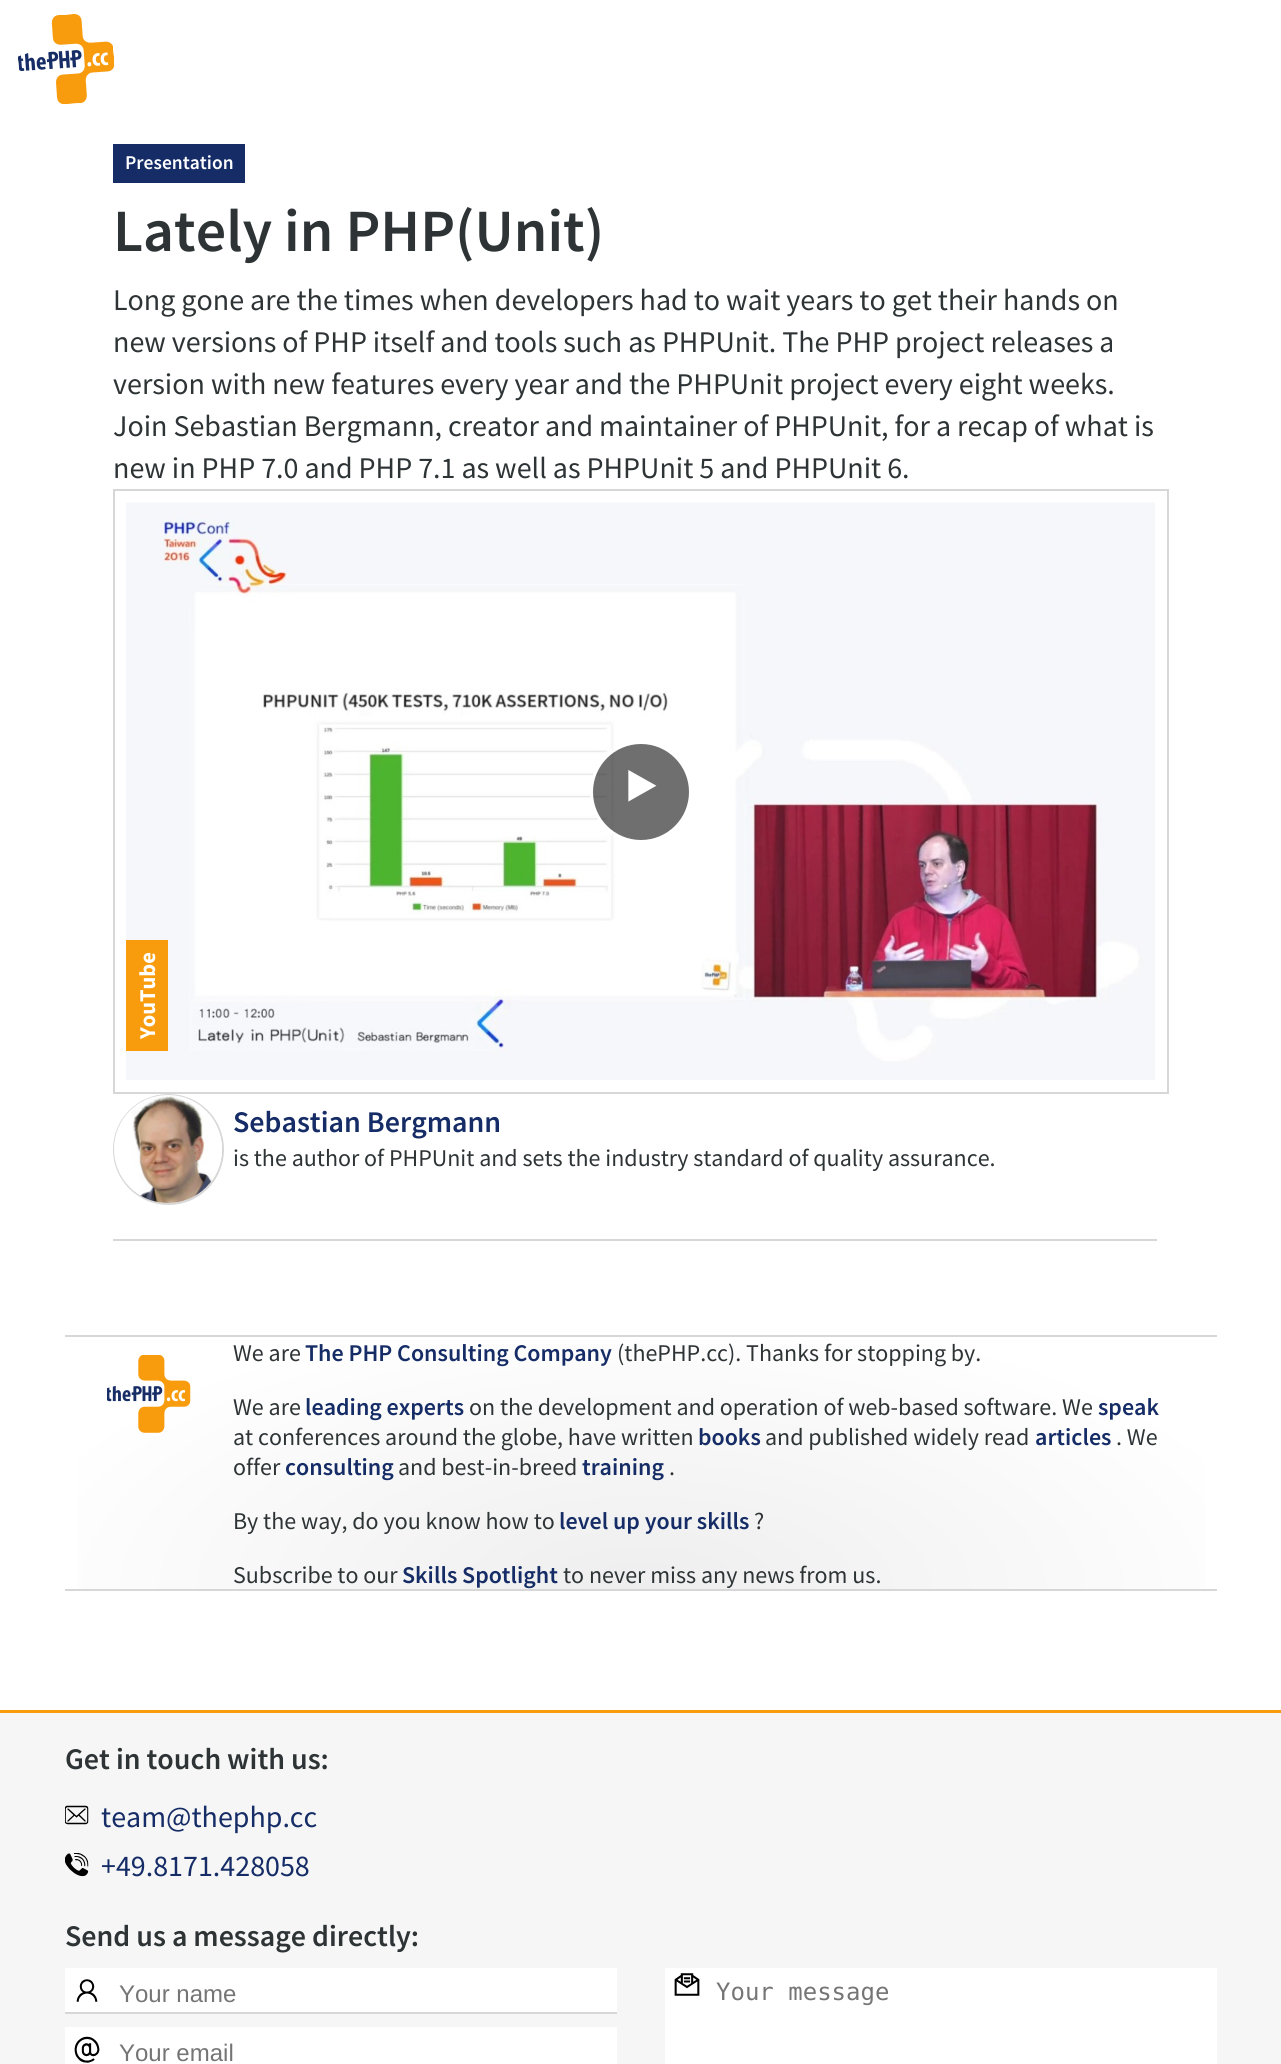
#include <cairo.h>
#include <math.h>
#include <stddef.h>


static void set_color(cairo_t *cr, unsigned color) {
    cairo_set_source_rgb(cr, (color >> 16) / 255.0, (color >> 8 & 255) / 255.0, (color & 255) / 255.0);
}

static void draw_text(cairo_t *cr, double x, double y, const char *s, const char *family, double size, int italic, int bold, unsigned color) {
    cairo_select_font_face(cr, family, italic ? CAIRO_FONT_SLANT_ITALIC : CAIRO_FONT_SLANT_NORMAL,
        bold ? CAIRO_FONT_WEIGHT_BOLD : CAIRO_FONT_WEIGHT_NORMAL);
    cairo_set_font_size(cr, size);
    set_color(cr, color);
    cairo_move_to(cr, x, y);
    cairo_show_text(cr, s);
}

static void fill_rect(cairo_t *cr, double x, double y, double w, double h, unsigned color) {
    set_color(cr, color);
    cairo_rectangle(cr, x, y, w, h);
    cairo_fill(cr);
}

static void draw_image(cairo_t *cr, const char *path, double x, double y, double w, double h) {
    cairo_surface_t *image = cairo_image_surface_create_from_png(path);
    cairo_save(cr);
    cairo_set_source_surface(cr, image, x, y);
    cairo_rectangle(cr, x, y, w, h);
    cairo_fill(cr);
    cairo_restore(cr);
    cairo_surface_destroy(image);
}

int main(void) {
    cairo_surface_t *surface = cairo_image_surface_create(CAIRO_FORMAT_RGB24, 1281, 2064);
    cairo_t *cr = cairo_create(surface);
    cairo_font_options_t *options = cairo_font_options_create();
    cairo_font_options_set_hint_metrics(options, CAIRO_HINT_METRICS_OFF);
    cairo_font_options_set_hint_style(options, CAIRO_HINT_STYLE_NONE);
    cairo_set_font_options(cr, options);
    cairo_set_miter_limit(cr, 4);
    cairo_pattern_t *gradient;
    set_color(cr, 0xFFFFFF);
    cairo_paint(cr);
    draw_image(cr, "assets/img1.png", 18, 14, 97, 91);
    fill_rect(cr, 113, 144, 132, 39, 0x152C66);
    draw_text(cr, 125, 169, "Presentation", "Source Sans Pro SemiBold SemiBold", 19.5, 0, 0, 0xFFFFFF);
    draw_text(cr, 113, 251, "Lately in PHP(Unit)", "Source Sans Pro SemiBold SemiBold", 60, 0, 0, 0x2E3436);
    draw_text(cr, 113, 310, "Long gone are the times when developers had to wait years to get their hands on", "Source Sans Pro", 30, 0, 0, 0x2E3436);
    draw_text(cr, 113, 352, "new versions of PHP itself and tools such as PHPUnit. The PHP project releases a", "Source Sans Pro", 30, 0, 0, 0x2E3436);
    draw_text(cr, 113, 394, "version with new features every year and the PHPUnit project every eight weeks.", "Source Sans Pro", 30, 0, 0, 0x2E3436);
    draw_text(cr, 113, 436, "Join Sebastian Bergmann, creator and maintainer of PHPUnit, for a recap of what is", "Source Sans Pro", 30, 0, 0, 0x2E3436);
    draw_text(cr, 113, 478, "new in PHP 7.0 and PHP 7.1 as well as PHPUnit 5 and PHPUnit 6.", "Source Sans Pro", 30, 0, 0, 0x2E3436);
    cairo_rectangle(cr, 114, 490, 1054, 603);
    set_color(cr, 0xD7D7D7);
    cairo_stroke(cr);
    draw_image(cr, "assets/img2.png", 126, 502, 1029, 578);
    cairo_set_source_rgba(cr, 0.016, 0.012, 0.012, 0.57);
    cairo_arc(cr, 641, 792, 49.5, 0, 2 * M_PI);
    cairo_fill_preserve(cr);
    set_color(cr, 0xFFFFFF);
    cairo_set_line_width(cr, 3);
    cairo_stroke(cr);
    draw_text(cr, 621, 826, "‣", "Noto Sans", 108, 0, 0, 0xFFFFFF);
    fill_rect(cr, 126, 940, 42, 111, 0xF89C0E);
    cairo_save(cr);
    cairo_translate(cr, 155, 1039);
    cairo_rotate(cr, -90 * M_PI / 180);
    draw_text(cr, 0, 0, "YouTube", "Source Sans Pro", 22.5, 0, 1, 0xFFFFFF);
    cairo_restore(cr);
    cairo_new_path(cr);
    cairo_arc(cr, 168.5, 1149.5, 54.5, 0, 2 * M_PI);
    set_color(cr, 0xD7D7D7);
    cairo_set_line_width(cr, 2);
    cairo_stroke(cr);
    draw_image(cr, "assets/img3.png", 114, 1095, 108, 108);
    draw_text(cr, 233, 1132, "Sebastian Bergmann", "Source Sans Pro SemiBold SemiBold", 30, 0, 0, 0x152C66);
    draw_text(cr, 233, 1166, "is the author of PHPUnit and sets the industry standard of quality assurance.", "Source Sans Pro", 24, 0, 0, 0x2E3436);
    fill_rect(cr, 113, 1239, 1044, 2, 0xD7D7D7);
    gradient = cairo_pattern_create_radial(0, 0, 0, 0, 0, 1);
    cairo_pattern_set_matrix(gradient, &(cairo_matrix_t){1.0 / 815, 0, 0, 1.0 / 356, -1.0 * 641 / 815, -1.0 * 1589 / 356});
    cairo_pattern_add_color_stop_rgba(gradient, 0, 0.929, 0.933, 0.929, 1);
    cairo_pattern_add_color_stop_rgba(gradient, 0.8, 1, 1, 1, 1);
    cairo_set_source(cr, gradient);
    cairo_pattern_destroy(gradient);
    cairo_rectangle(cr, 77, 1344, 1128, 245);
    cairo_fill(cr);
    fill_rect(cr, 65, 1335, 1152, 2, 0xD7D7D7);
    fill_rect(cr, 65, 1589, 1152, 2, 0xD7D7D7);
    draw_image(cr, "assets/img4.png", 107, 1355, 84, 78);
    draw_text(cr, 233, 1361, "We are", "Source Sans Pro", 24, 0, 0, 0x2E3436);
    draw_text(cr, 305, 1361, "The PHP Consulting Company", "Source Sans Pro SemiBold SemiBold", 24, 0, 0, 0x152C66);
    draw_text(cr, 617, 1361, "(thePHP.cc). Thanks for stopping by.", "Source Sans Pro", 24, 0, 0, 0x2E3436);
    draw_text(cr, 233, 1415, "We are", "Source Sans Pro", 24, 0, 0, 0x2E3436);
    draw_text(cr, 305, 1415, "leading experts", "Source Sans Pro SemiBold SemiBold", 24, 0, 0, 0x152C66);
    draw_text(cr, 469, 1415, "on the development and operation of web-based software. We", "Source Sans Pro", 24, 0, 0, 0x2E3436);
    draw_text(cr, 1098, 1415, "speak", "Source Sans Pro SemiBold SemiBold", 24, 0, 0, 0x152C66);
    draw_text(cr, 233, 1445, "at conferences around the globe, have written", "Source Sans Pro", 24, 0, 0, 0x2E3436);
    draw_text(cr, 698, 1445, "books", "Source Sans Pro SemiBold SemiBold", 24, 0, 0, 0x152C66);
    draw_text(cr, 765, 1445, "and published widely read", "Source Sans Pro", 24, 0, 0, 0x2E3436);
    draw_text(cr, 1035, 1445, "articles", "Source Sans Pro SemiBold SemiBold", 24, 0, 0, 0x152C66);
    draw_text(cr, 1116, 1445, ". We", "Source Sans Pro", 24, 0, 0, 0x2E3436);
    draw_text(cr, 233, 1475, "offer", "Source Sans Pro", 24, 0, 0, 0x2E3436);
    draw_text(cr, 285, 1475, "consulting", "Source Sans Pro SemiBold SemiBold", 24, 0, 0, 0x152C66);
    draw_text(cr, 398, 1475, "and best-in-breed", "Source Sans Pro", 24, 0, 0, 0x2E3436);
    draw_text(cr, 582, 1475, "training", "Source Sans Pro SemiBold SemiBold", 24, 0, 0, 0x152C66);
    draw_text(cr, 669, 1475, ".", "Source Sans Pro", 24, 0, 0, 0x2E3436);
    draw_text(cr, 233, 1529, "By the way, do you know how to", "Source Sans Pro", 24, 0, 0, 0x2E3436);
    draw_text(cr, 559, 1529, "level up your skills", "Source Sans Pro SemiBold SemiBold", 24, 0, 0, 0x152C66);
    draw_text(cr, 754, 1529, "?", "Source Sans Pro", 24, 0, 0, 0x2E3436);
    draw_text(cr, 233, 1583, "Subscribe to our", "Source Sans Pro", 24, 0, 0, 0x2E3436);
    draw_text(cr, 402, 1583, "Skills Spotlight", "Source Sans Pro SemiBold SemiBold", 24, 0, 0, 0x152C66);
    draw_text(cr, 563, 1583, "to never miss any news from us.", "Source Sans Pro", 24, 0, 0, 0x2E3436);
    fill_rect(cr, 0, 1713, 1281, 351, 0xF6F6F6);
    fill_rect(cr, 0, 1710, 1281, 3, 0xF89C0E);
    draw_text(cr, 65, 1769, "Get in touch with us:", "Source Sans Pro SemiBold SemiBold", 30, 0, 0, 0x2E3436);
    draw_image(cr, "assets/img5.png", 65, 1805, 24, 20);
    draw_text(cr, 101, 1827, "team@thephp.cc", "Source Sans Pro", 30, 0, 0, 0x152C66);
    draw_image(cr, "assets/img6.png", 65, 1853, 24, 24);
    draw_text(cr, 101, 1876, "+49.8171.428058", "Source Sans Pro", 30, 0, 0, 0x152C66);
    draw_text(cr, 65, 1946, "Send us a message directly:", "Source Sans Pro SemiBold SemiBold", 30, 0, 0, 0x2E3436);
    fill_rect(cr, 65, 1968, 552, 44, 0xFFFFFF);
    fill_rect(cr, 65, 2012, 552, 2, 0xD7D7D7);
    draw_image(cr, "assets/img7.png", 76, 1979, 22, 23);
    draw_text(cr, 119, 2002, "Your name", "Liberation Sans", 24, 0, 0, 0x757575);
    fill_rect(cr, 665, 1968, 552, 96, 0xFFFFFF);
    draw_image(cr, "assets/img8.png", 674, 1973, 26, 23);
    draw_text(cr, 716, 2000, "Your message", "DejaVu Sans Mono", 24, 0, 0, 0x757575);
    fill_rect(cr, 65, 2027, 552, 37, 0xFFFFFF);
    draw_image(cr, "assets/img9.png", 74, 2036, 26, 27);
    draw_text(cr, 119, 2061, "Your email", "Liberation Sans", 24, 0, 0, 0x757575);
    cairo_surface_write_to_png(surface, "output.png");
    cairo_font_options_destroy(options);
    cairo_destroy(cr);
    cairo_surface_destroy(surface);
    return 0;
}
